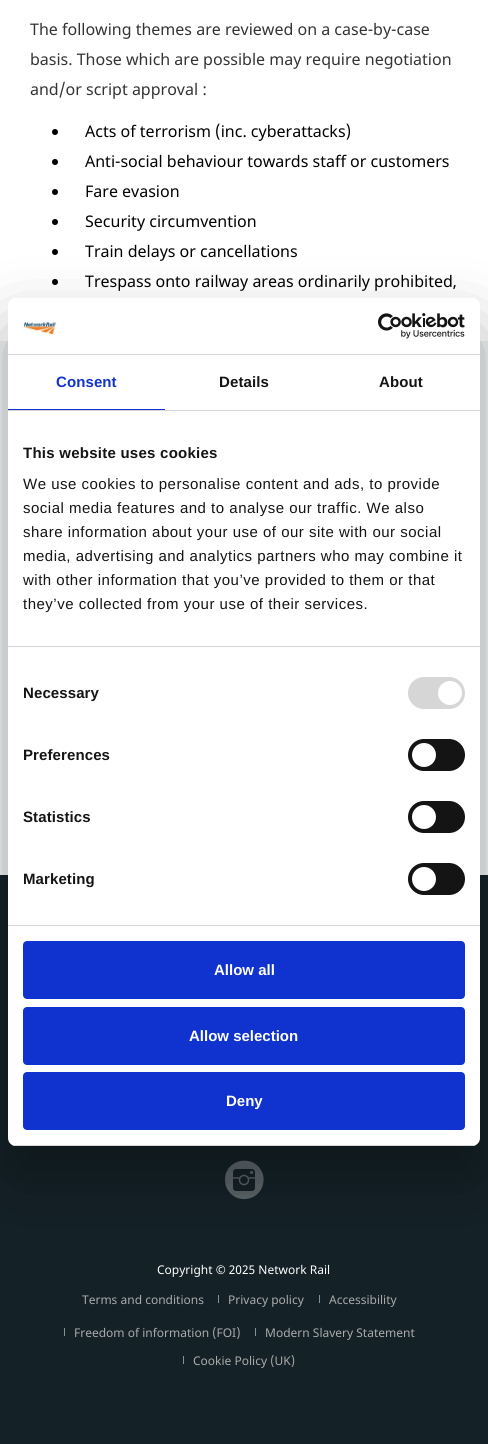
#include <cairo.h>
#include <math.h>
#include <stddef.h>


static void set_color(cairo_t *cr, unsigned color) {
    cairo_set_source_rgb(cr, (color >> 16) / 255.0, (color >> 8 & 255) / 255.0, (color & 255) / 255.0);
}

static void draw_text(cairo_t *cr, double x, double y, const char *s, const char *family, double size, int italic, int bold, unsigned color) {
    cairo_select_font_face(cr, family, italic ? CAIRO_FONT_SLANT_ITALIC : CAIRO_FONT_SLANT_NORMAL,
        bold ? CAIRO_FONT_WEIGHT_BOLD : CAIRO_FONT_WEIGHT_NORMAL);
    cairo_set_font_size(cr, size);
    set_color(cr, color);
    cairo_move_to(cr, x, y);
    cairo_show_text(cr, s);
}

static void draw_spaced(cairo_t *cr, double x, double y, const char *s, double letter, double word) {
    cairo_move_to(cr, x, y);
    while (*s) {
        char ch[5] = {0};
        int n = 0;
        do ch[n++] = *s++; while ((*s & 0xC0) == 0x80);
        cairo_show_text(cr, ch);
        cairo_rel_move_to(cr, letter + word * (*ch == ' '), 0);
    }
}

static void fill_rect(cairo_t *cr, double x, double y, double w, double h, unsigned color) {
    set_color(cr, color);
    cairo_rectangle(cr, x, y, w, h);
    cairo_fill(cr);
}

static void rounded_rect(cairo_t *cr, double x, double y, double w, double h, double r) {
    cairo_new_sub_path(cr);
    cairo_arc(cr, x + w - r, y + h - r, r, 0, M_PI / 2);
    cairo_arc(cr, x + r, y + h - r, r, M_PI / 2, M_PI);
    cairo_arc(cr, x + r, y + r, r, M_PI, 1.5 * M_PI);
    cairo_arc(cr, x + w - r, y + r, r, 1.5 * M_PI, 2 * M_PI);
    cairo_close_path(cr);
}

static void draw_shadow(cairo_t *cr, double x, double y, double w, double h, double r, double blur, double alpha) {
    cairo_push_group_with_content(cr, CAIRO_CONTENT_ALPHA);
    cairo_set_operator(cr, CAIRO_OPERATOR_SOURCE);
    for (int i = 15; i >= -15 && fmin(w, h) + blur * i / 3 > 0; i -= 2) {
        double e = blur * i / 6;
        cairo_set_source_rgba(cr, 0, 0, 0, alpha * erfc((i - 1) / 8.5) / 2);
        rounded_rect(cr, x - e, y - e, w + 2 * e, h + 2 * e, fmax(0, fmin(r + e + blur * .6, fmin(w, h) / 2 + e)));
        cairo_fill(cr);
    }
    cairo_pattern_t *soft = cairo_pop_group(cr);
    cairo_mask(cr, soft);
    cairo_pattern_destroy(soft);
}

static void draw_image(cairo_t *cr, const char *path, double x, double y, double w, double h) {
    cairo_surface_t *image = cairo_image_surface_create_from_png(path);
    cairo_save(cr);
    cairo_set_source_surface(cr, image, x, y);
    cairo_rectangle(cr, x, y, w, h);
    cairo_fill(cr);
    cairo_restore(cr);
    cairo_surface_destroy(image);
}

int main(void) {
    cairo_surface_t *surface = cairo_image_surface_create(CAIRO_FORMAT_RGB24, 488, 1444);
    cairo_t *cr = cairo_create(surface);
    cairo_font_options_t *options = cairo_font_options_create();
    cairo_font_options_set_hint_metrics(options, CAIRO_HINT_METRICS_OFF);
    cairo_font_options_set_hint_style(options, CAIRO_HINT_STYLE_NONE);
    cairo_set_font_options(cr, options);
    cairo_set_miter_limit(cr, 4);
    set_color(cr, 0xEDF1F2);
    cairo_paint(cr);
    fill_rect(cr, 0, 0, 488, 341, 0xFFFFFF);
    draw_text(cr, 30, 35, "The following themes are reviewed on a case-by-case", "Noto Sans", 16, 0, 0, 0x333333);
    draw_text(cr, 30, 65, "basis. Those which are possible may require negotiation", "Noto Sans", 16, 0, 0, 0x333333);
    draw_text(cr, 30, 95, "and/or script approval :", "Noto Sans", 16, 0, 0, 0x333333);
    set_color(cr, 0x000000);
    cairo_new_path(cr);
    cairo_arc(cr, 55, 132, 3, 0, 2 * M_PI);
    cairo_fill(cr);
    draw_text(cr, 85, 137, "Acts of terrorism (inc. cyberattacks)", "Noto Sans", 16, 0, 0, 0x000000);
    cairo_new_path(cr);
    cairo_arc(cr, 55, 162, 3, 0, 2 * M_PI);
    cairo_fill(cr);
    draw_text(cr, 85, 167, "Anti-social behaviour towards staff or customers", "Noto Sans", 16, 0, 0, 0x000000);
    cairo_new_path(cr);
    cairo_arc(cr, 55, 192, 3, 0, 2 * M_PI);
    cairo_fill(cr);
    draw_text(cr, 85, 197, "Fare evasion", "Noto Sans", 16, 0, 0, 0x000000);
    cairo_new_path(cr);
    cairo_arc(cr, 55, 222, 3, 0, 2 * M_PI);
    cairo_fill(cr);
    draw_text(cr, 85, 227, "Security circumvention", "Noto Sans", 16, 0, 0, 0x000000);
    cairo_new_path(cr);
    cairo_arc(cr, 55, 252, 3, 0, 2 * M_PI);
    cairo_fill(cr);
    draw_text(cr, 85, 257, "Train delays or cancellations", "Noto Sans", 16, 0, 0, 0x000000);
    cairo_new_path(cr);
    cairo_arc(cr, 55, 282, 3, 0, 2 * M_PI);
    cairo_fill(cr);
    draw_text(cr, 85, 287, "Trespass onto railway areas ordinarily prohibited,", "Noto Sans", 16, 0, 0, 0x000000);
    fill_rect(cr, 0, 875, 488, 569, 0x142127);
    set_color(cr, 0x5B6468);
    cairo_new_path(cr);
    cairo_move_to(cr, 261, 1170);
    cairo_curve_to(cr, 263, 1173.5, 264, 1177.5, 263.5, 1181);
    cairo_curve_to(cr, 262.5, 1200, 237, 1206, 227.5, 1189.5);
    cairo_curve_to(cr, 225.5, 1186.5, 225, 1182.5, 225, 1178.5);
    cairo_curve_to(cr, 226, 1159.5, 251.5, 1154, 261, 1170);
    cairo_close_path(cr);
    cairo_fill(cr);
    draw_image(cr, "assets/img1.png", 233, 1169, 22, 22);
    draw_text(cr, 157, 1274, "Copyright © 2025 Network Rail", "Noto Sans", 12, 0, 0, 0xFFFFFF);
    draw_text(cr, 82, 1304, "Terms and conditions", "Noto Sans", 12, 0, 0, 0xABABAB);
    fill_rect(cr, 218, 1295, 1, 8, 0x8A9093);
    draw_text(cr, 228, 1304, "Privacy policy", "Noto Sans", 12, 0, 0, 0xABABAB);
    fill_rect(cr, 319, 1295, 1, 8, 0x8A9093);
    draw_text(cr, 329, 1304, "Accessibility", "Noto Sans", 12, 0, 0, 0xABABAB);
    fill_rect(cr, 64, 1328, 1, 8, 0x8A9093);
    draw_text(cr, 74, 1337, "Freedom of information (FOI)", "Noto Sans", 12, 0, 0, 0xABABAB);
    fill_rect(cr, 255, 1328, 1, 8, 0x8A9093);
    draw_text(cr, 265, 1337, "Modern Slavery Statement", "Noto Sans", 12, 0, 0, 0xABABAB);
    fill_rect(cr, 183, 1356, 1, 8, 0x8A9093);
    draw_text(cr, 193, 1365, "Cookie Policy (UK)", "Noto Sans", 12, 0, 0, 0xABABAB);
    set_color(cr, 0x000000);
    draw_shadow(cr, 8, 330, 472, 848, 8, 34, 0.3);
    set_color(cr, 0xFFFFFF);
    rounded_rect(cr, 8, 298, 472, 848, 8);
    cairo_fill(cr);
    fill_rect(cr, 8, 354, 472, 1, 0xD6D6D6);
    draw_image(cr, "assets/img2.png", 23, 321, 33, 14);
    draw_image(cr, "assets/img3.png", 378, 313, 87, 26);
    fill_rect(cr, 8, 410, 472, 1, 0xD6D6D6);
    fill_rect(cr, 8, 409, 157, 1, 0x1032CF);
    cairo_select_font_face(cr, "Liberation Sans", CAIRO_FONT_SLANT_NORMAL, CAIRO_FONT_WEIGHT_BOLD);
    cairo_set_font_size(cr, 15);
    draw_spaced(cr, 56, 387, "Consent", 0.1, 0);
    set_color(cr, 0x141414);
    draw_spaced(cr, 219, 387, "Details", 0.1, 0);
    draw_spaced(cr, 379, 387, "About", 0.1, 0);
    fill_rect(cr, 8, 646, 472, 1, 0xD6D6D6);
    set_color(cr, 0x141414);
    draw_spaced(cr, 23, 458, "This website uses cookies", 0.25, 0);
    cairo_select_font_face(cr, "Liberation Sans", CAIRO_FONT_SLANT_NORMAL, CAIRO_FONT_WEIGHT_NORMAL);
    draw_spaced(cr, 23, 489, "We use cookies to personalise content and ads, to provide", 0.5, 0);
    draw_spaced(cr, 23, 513, "social media features and to analyse our traffic. We also", 0.5, 0);
    draw_spaced(cr, 23, 537, "share information about your use of our site with our social", 0.5, 0);
    draw_spaced(cr, 23, 561, "media, advertising and analytics partners who may combine it", 0.5, 0);
    draw_spaced(cr, 23, 585, "with other information that you’ve provided to them or that", 0.5, 0);
    draw_spaced(cr, 23, 609, "they’ve collected from your use of their services.", 0.5, 0);
    fill_rect(cr, 8, 925, 472, 1, 0xD6D6D6);
    cairo_select_font_face(cr, "Liberation Sans", CAIRO_FONT_SLANT_NORMAL, CAIRO_FONT_WEIGHT_BOLD);
    set_color(cr, 0x141414);
    draw_spaced(cr, 23, 698, "Necessary", 0.1, 0);
    set_color(cr, 0xD6D6D6);
    rounded_rect(cr, 408, 677, 57, 32, 16);
    cairo_fill(cr);
    set_color(cr, 0xFFFFFF);
    cairo_arc(cr, 450, 693, 12, 0, 2 * M_PI);
    cairo_fill(cr);
    set_color(cr, 0x141414);
    draw_spaced(cr, 23, 760, "Preferences", 0.1, 0);
    rounded_rect(cr, 408, 739, 57, 32, 16);
    cairo_fill(cr);
    set_color(cr, 0xFFFFFF);
    cairo_arc(cr, 424, 755, 12, 0, 2 * M_PI);
    cairo_fill(cr);
    set_color(cr, 0x141414);
    draw_spaced(cr, 23, 822, "Statistics", 0.1, 0);
    rounded_rect(cr, 408, 801, 57, 32, 16);
    cairo_fill(cr);
    set_color(cr, 0xFFFFFF);
    cairo_arc(cr, 424, 817, 12, 0, 2 * M_PI);
    cairo_fill(cr);
    set_color(cr, 0x141414);
    draw_spaced(cr, 23, 884, "Marketing", 0.1, 0);
    rounded_rect(cr, 408, 863, 57, 32, 16);
    cairo_fill(cr);
    set_color(cr, 0xFFFFFF);
    cairo_arc(cr, 424, 879, 12, 0, 2 * M_PI);
    cairo_fill(cr);
    cairo_save(cr);
    rounded_rect(cr, 8, 298, 472, 848, 8);
    cairo_clip(cr);
    fill_rect(cr, 8, 1145, 472, 1, 0xD6D6D6);
    cairo_restore(cr);
    set_color(cr, 0x1032CF);
    rounded_rect(cr, 24, 942, 440, 56, 3);
    cairo_fill_preserve(cr);
    cairo_stroke(cr);
    draw_text(cr, 214, 975, "Allow all", "Liberation Sans", 15, 0, 1, 0xFFFFFF);
    set_color(cr, 0x1032CF);
    rounded_rect(cr, 24, 1008, 440, 56, 3);
    cairo_fill_preserve(cr);
    cairo_stroke(cr);
    draw_text(cr, 189, 1041, "Allow selection", "Liberation Sans", 15, 0, 1, 0xFFFFFF);
    set_color(cr, 0x1032CF);
    rounded_rect(cr, 24, 1073, 440, 56, 3);
    cairo_fill_preserve(cr);
    cairo_stroke(cr);
    draw_text(cr, 226, 1106, "Deny", "Liberation Sans", 15, 0, 1, 0xFFFFFF);
    cairo_surface_write_to_png(surface, "output.png");
    cairo_font_options_destroy(options);
    cairo_destroy(cr);
    cairo_surface_destroy(surface);
    return 0;
}
